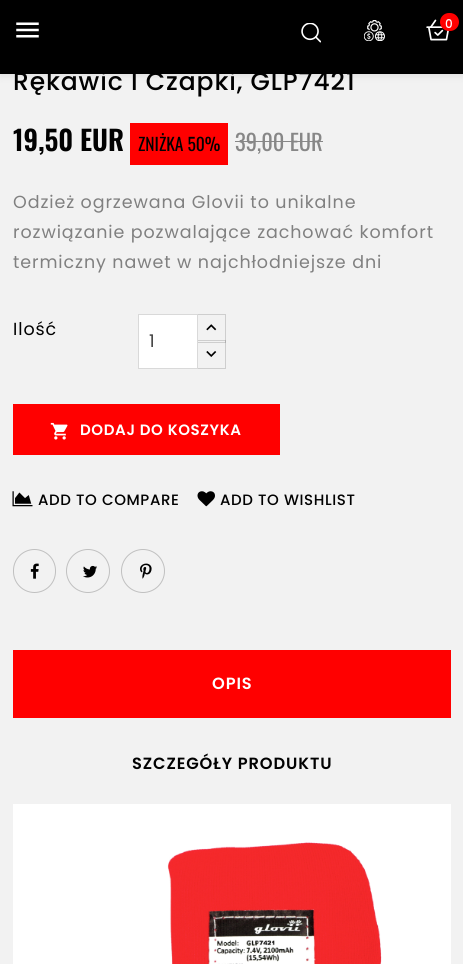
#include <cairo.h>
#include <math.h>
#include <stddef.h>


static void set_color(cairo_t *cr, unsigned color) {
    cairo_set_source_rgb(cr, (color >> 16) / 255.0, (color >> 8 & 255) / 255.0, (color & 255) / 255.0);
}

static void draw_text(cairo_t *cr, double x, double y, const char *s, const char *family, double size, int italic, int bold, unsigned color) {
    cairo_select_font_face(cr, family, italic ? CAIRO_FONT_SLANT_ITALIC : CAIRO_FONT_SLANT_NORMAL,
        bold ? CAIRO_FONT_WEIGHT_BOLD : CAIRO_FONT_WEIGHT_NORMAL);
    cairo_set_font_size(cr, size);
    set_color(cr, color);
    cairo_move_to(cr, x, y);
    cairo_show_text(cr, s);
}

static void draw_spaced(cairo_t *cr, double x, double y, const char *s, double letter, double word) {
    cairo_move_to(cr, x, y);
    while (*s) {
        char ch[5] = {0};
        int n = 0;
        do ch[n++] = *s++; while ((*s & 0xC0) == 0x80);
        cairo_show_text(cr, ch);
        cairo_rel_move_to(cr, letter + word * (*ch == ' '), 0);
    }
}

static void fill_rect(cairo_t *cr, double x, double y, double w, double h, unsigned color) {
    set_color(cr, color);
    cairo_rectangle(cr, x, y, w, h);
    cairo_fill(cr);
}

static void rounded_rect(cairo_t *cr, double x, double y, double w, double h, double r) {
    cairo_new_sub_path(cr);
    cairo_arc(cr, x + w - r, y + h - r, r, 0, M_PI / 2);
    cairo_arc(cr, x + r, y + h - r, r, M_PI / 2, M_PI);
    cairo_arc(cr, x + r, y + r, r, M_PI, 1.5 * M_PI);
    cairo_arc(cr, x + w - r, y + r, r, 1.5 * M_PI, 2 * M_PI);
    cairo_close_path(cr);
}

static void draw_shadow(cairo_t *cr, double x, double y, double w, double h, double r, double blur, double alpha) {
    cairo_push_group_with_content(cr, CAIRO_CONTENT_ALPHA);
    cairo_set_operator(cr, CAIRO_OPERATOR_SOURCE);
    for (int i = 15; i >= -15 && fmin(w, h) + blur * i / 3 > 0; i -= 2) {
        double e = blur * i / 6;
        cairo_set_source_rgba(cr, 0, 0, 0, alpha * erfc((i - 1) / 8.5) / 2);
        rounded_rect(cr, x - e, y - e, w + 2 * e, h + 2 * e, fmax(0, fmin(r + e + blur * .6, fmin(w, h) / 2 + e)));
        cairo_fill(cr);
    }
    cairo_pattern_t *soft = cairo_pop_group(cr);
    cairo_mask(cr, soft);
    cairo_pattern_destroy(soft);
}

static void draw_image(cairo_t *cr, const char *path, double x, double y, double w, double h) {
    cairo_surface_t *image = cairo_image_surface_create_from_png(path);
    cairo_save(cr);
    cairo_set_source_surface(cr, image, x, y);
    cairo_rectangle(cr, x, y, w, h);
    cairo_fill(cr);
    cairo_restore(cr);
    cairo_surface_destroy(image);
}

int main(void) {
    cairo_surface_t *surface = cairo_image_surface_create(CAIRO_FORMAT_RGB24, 463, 964);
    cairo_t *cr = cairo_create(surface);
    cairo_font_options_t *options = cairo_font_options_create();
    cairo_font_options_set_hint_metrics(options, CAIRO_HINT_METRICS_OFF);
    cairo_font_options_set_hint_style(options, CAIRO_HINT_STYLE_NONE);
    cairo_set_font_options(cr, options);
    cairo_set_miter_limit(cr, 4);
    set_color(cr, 0xF2F2F2);
    cairo_paint(cr);
    set_color(cr, 0x000000);
    draw_shadow(cr, 0, 0, 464, 74, 0, 5, 0.12);
    cairo_select_font_face(cr, "Poppins Medium", CAIRO_FONT_SLANT_NORMAL, CAIRO_FONT_WEIGHT_NORMAL);
    cairo_set_font_size(cr, 25);
    set_color(cr, 0x010101);
    draw_spaced(cr, 13, 90, "Rękawic I Czapki, GLP7421", 0.9, 0);
    fill_rect(cr, 0, 0, 463, 74, 0x000000);
    draw_image(cr, "assets/img1.png", 16, 22, 23, 16);
    draw_image(cr, "assets/img2.png", 301, 23, 20, 20);
    draw_image(cr, "assets/img3.png", 364, 20, 21, 21);
    draw_image(cr, "assets/img4.png", 426, 19, 23, 22);
    set_color(cr, 0xFF0000);
    rounded_rect(cr, 440, 13, 19, 18, 9);
    cairo_fill(cr);
    cairo_set_font_size(cr, 12);
    set_color(cr, 0xFFFFFF);
    draw_spaced(cr, 445, 28, "0", 0.9, 0);
    draw_text(cr, 13, 151, "19,50 EUR", "Oswald SemiBold", 27.5, 0, 0, 0x010101);
    fill_rect(cr, 130, 123, 98, 42, 0xFF0000);
    draw_text(cr, 138, 151, "ZNIŻKA 50%", "Oswald", 17.5, 0, 0, 0x010101);
    draw_text(cr, 235, 151, "39,00 EUR", "Oswald", 22.5, 0, 0, 0x878787);
    fill_rect(cr, 235, 141, 88, 1, 0x878787);
    cairo_select_font_face(cr, "Poppins", CAIRO_FONT_SLANT_NORMAL, CAIRO_FONT_WEIGHT_NORMAL);
    cairo_set_font_size(cr, 17.5);
    set_color(cr, 0x808080);
    draw_spaced(cr, 13, 208, "Odzież ogrzewana Glovii to unikalne", 0.9, 0);
    draw_spaced(cr, 13, 238, "rozwiązanie pozwalające zachować komfort", 0.9, 0);
    draw_spaced(cr, 13, 268, "termiczny nawet w najchłodniejsze dni", 0.9, 0);
    set_color(cr, 0x010101);
    draw_spaced(cr, 13, 335, "Ilość", 0.9, 0);
    cairo_rectangle(cr, 196.5, 314.5, 29, 28);
    set_color(cr, 0xCECECE);
    cairo_set_line_width(cr, 1);
    cairo_stroke(cr);
    cairo_rectangle(cr, 196.5, 340.5, 29, 28);
    cairo_set_source_rgba(cr, 0, 0, 0, 0.15);
    cairo_stroke(cr);
    set_color(cr, 0xFFFFFF);
    cairo_rectangle(cr, 138.5, 314.5, 59, 54);
    cairo_fill_preserve(cr);
    set_color(cr, 0xD9D9D9);
    cairo_stroke(cr);
    draw_text(cr, 149, 347, "1", "Poppins", 17.5, 0, 0, 0x414141);
    draw_image(cr, "assets/img5.png", 206, 324, 11, 7);
    draw_image(cr, "assets/img6.png", 206, 351, 11, 6);
    fill_rect(cr, 13, 404, 267, 51, 0xFF0000);
    draw_image(cr, "assets/img7.png", 50, 422, 18, 18);
    cairo_select_font_face(cr, "Poppins SemiBold", CAIRO_FONT_SLANT_NORMAL, CAIRO_FONT_WEIGHT_NORMAL);
    cairo_set_font_size(cr, 15);
    set_color(cr, 0xFFFFFF);
    draw_spaced(cr, 80, 435, "DODAJ DO KOSZYKA", 0.6, 0);
    draw_image(cr, "assets/img8.png", 12, 491, 21, 16);
    cairo_select_font_face(cr, "Poppins Medium", CAIRO_FONT_SLANT_NORMAL, CAIRO_FONT_WEIGHT_NORMAL);
    set_color(cr, 0x010101);
    draw_spaced(cr, 38, 505, "ADD TO COMPARE", 0.6, 0);
    draw_image(cr, "assets/img9.png", 197, 491, 18, 16);
    draw_spaced(cr, 220, 505, "ADD TO WISHLIST", 0.6, 0);
    rounded_rect(cr, 13.5, 549.5, 42, 43, 21);
    set_color(cr, 0xC0C0C0);
    cairo_stroke(cr);
    draw_image(cr, "assets/img10.png", 30, 563, 9, 16);
    cairo_arc(cr, 88, 571, 21.5, 0, 2 * M_PI);
    cairo_stroke(cr);
    draw_image(cr, "assets/img11.png", 83, 565, 14, 13);
    cairo_arc(cr, 143, 571, 21.5, 0, 2 * M_PI);
    cairo_stroke(cr);
    draw_image(cr, "assets/img12.png", 140, 563, 12, 16);
    fill_rect(cr, 13, 650, 438, 68, 0xFF0000);
    cairo_select_font_face(cr, "Poppins SemiBold", CAIRO_FONT_SLANT_NORMAL, CAIRO_FONT_WEIGHT_NORMAL);
    cairo_set_font_size(cr, 16.25);
    set_color(cr, 0xFFFFFF);
    draw_spaced(cr, 212, 689, "OPIS", 0.9, 0);
    set_color(cr, 0x010101);
    draw_spaced(cr, 132, 769, "SZCZEGÓŁY PRODUKTU", 0.9, 0);
    fill_rect(cr, 13, 804, 438, 160, 0xFFFFFF);
    draw_image(cr, "assets/img13.png", 167, 842, 215, 122);
    cairo_surface_write_to_png(surface, "output.png");
    cairo_font_options_destroy(options);
    cairo_destroy(cr);
    cairo_surface_destroy(surface);
    return 0;
}
